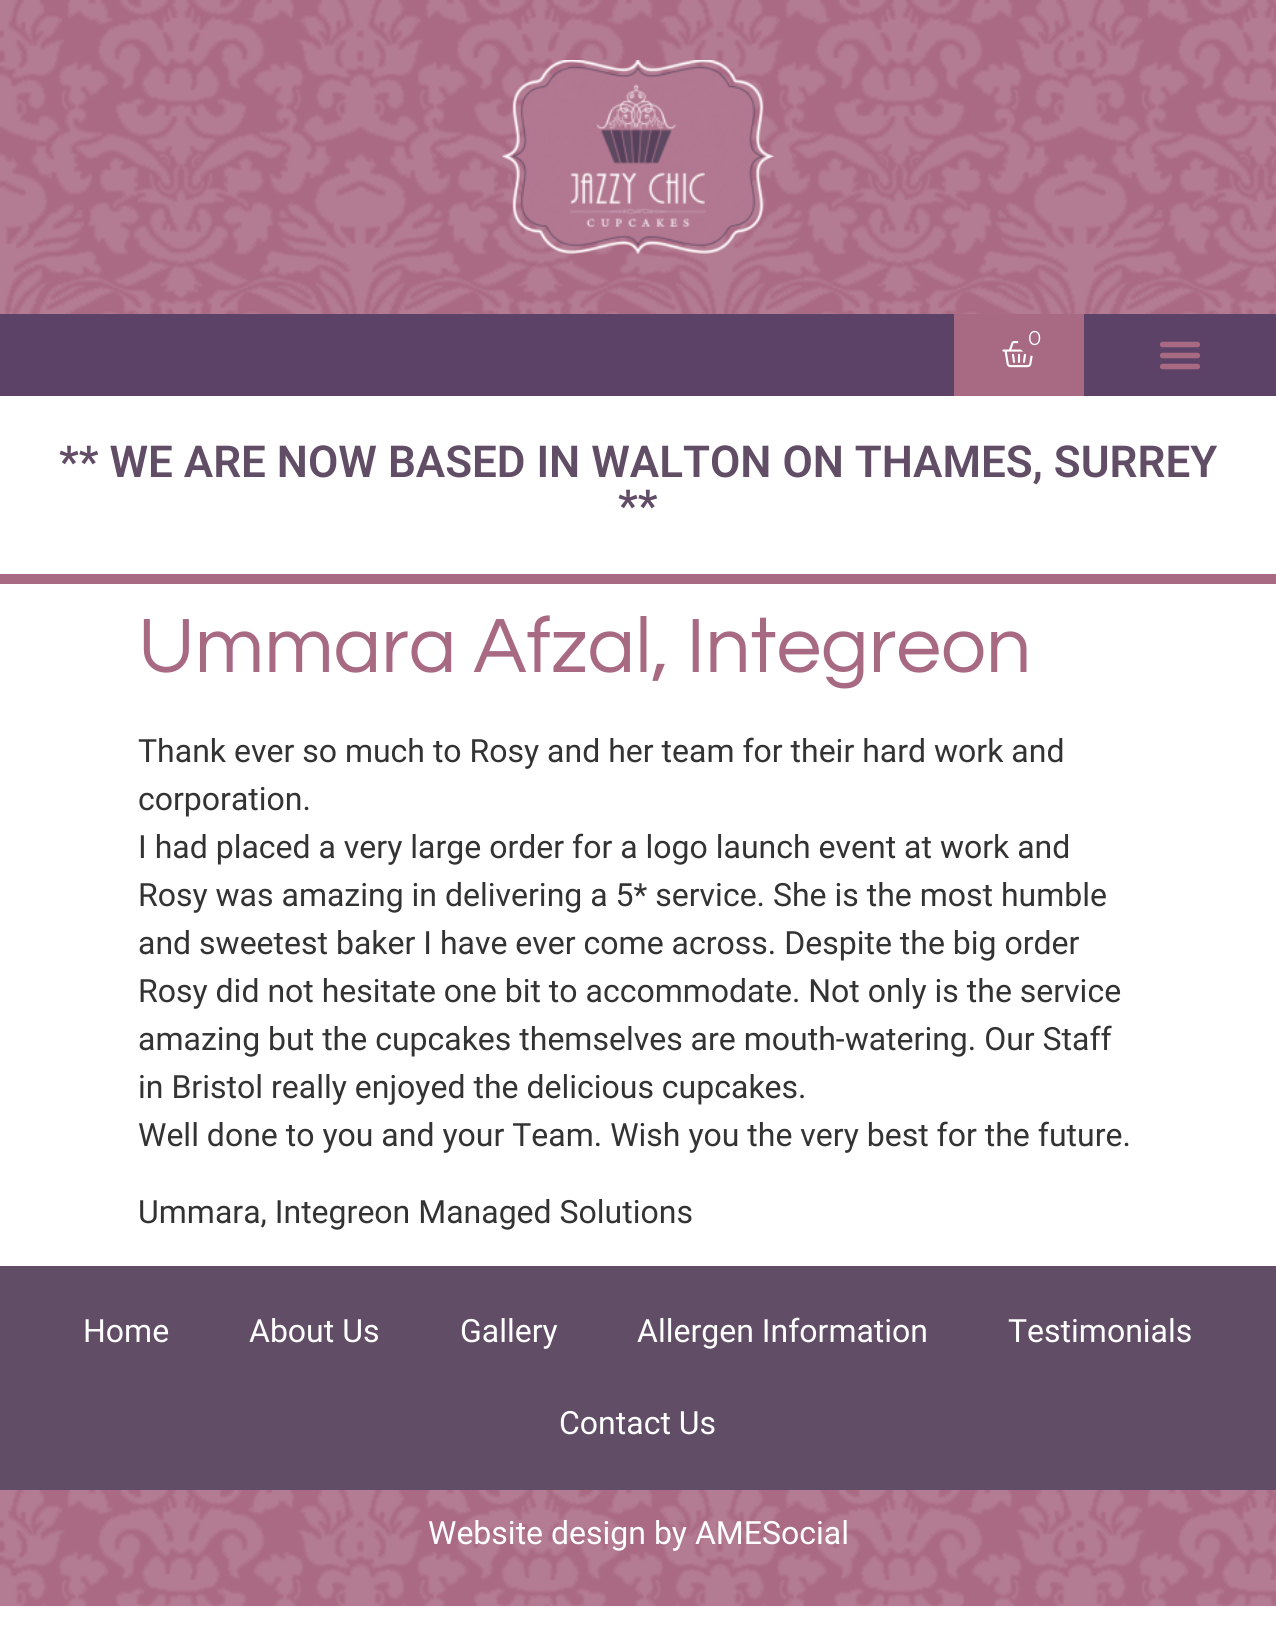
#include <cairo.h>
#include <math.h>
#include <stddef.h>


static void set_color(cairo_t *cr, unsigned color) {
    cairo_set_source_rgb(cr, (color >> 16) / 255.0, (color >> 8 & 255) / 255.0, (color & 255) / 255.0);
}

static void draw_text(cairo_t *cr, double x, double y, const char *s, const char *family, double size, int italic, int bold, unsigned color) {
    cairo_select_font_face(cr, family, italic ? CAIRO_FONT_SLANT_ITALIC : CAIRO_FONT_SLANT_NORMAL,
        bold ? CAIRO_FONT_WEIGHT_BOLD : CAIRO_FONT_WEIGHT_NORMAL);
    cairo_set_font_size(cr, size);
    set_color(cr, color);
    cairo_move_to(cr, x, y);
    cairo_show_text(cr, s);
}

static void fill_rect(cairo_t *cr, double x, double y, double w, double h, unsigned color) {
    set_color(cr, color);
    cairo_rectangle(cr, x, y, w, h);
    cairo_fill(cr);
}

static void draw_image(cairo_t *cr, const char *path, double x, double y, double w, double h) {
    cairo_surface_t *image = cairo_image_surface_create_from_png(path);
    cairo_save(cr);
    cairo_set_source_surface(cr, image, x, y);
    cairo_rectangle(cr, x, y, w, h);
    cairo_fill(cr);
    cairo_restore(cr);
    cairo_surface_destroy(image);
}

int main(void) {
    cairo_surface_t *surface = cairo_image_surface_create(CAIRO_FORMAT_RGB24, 1276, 1626);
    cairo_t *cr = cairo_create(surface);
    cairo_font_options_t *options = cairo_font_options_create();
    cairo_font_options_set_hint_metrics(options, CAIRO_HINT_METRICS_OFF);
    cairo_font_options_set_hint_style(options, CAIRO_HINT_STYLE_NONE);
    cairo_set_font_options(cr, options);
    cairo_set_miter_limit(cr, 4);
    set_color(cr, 0xFFFFFF);
    cairo_paint(cr);
    draw_image(cr, "assets/img1.png", 0, 0, 1276, 314);
    draw_image(cr, "assets/img2.png", 502, 60, 272, 194);
    fill_rect(cr, 0, 314, 1276, 82, 0x5B4266);
    fill_rect(cr, 954, 314, 130, 82, 0xA86982);
    draw_image(cr, "assets/img3.png", 1002, 341, 31, 27);
    cairo_arc(cr, 1034, 340, 16, 0, 2 * M_PI);
    cairo_fill(cr);
    draw_text(cr, 1028, 345, "0", "Montserrat", 20, 0, 0, 0xFFFFFF);
    draw_image(cr, "assets/img4.png", 1159, 341, 42, 29);
    fill_rect(cr, 0, 574, 1276, 10, 0xA86982);
    draw_text(cr, 59, 477, "** WE ARE NOW BASED IN WALTON ON THAMES, SURREY", "Roboto SemiBold", 44, 0, 0, 0x614E66);
    draw_text(cr, 618, 521, "**", "Roboto SemiBold", 44, 0, 0, 0x614E66);
    draw_text(cr, 138, 672, "Ummara Afzal, Integreon", "Questrial", 80, 0, 0, 0xA86982);
    draw_text(cr, 138, 762, "Thank ever so much to Rosy and her team for their hard work and", "Roboto", 32, 0, 0, 0x333333);
    draw_text(cr, 138, 810, "corporation.", "Roboto", 32, 0, 0, 0x333333);
    draw_text(cr, 138, 858, "I had placed a very large order for a logo launch event at work and", "Roboto", 32, 0, 0, 0x333333);
    draw_text(cr, 138, 906, "Rosy was amazing in delivering a 5* service. She is the most humble", "Roboto", 32, 0, 0, 0x333333);
    draw_text(cr, 138, 954, "and sweetest baker I have ever come across. Despite the big order", "Roboto", 32, 0, 0, 0x333333);
    draw_text(cr, 138, 1002, "Rosy did not hesitate one bit to accommodate. Not only is the service", "Roboto", 32, 0, 0, 0x333333);
    draw_text(cr, 138, 1050, "amazing but the cupcakes themselves are mouth-watering. Our Staff", "Roboto", 32, 0, 0, 0x333333);
    draw_text(cr, 138, 1098, "in Bristol really enjoyed the delicious cupcakes.", "Roboto", 32, 0, 0, 0x333333);
    draw_text(cr, 138, 1146, "Well done to you and your Team. Wish you the very best for the future.", "Roboto", 32, 0, 0, 0x333333);
    draw_text(cr, 138, 1223, "Ummara, Integreon Managed Solutions", "Roboto", 32, 0, 0, 0x333333);
    fill_rect(cr, 0, 1266, 1276, 224, 0x614E66);
    draw_text(cr, 83, 1342, "Home", "Roboto", 32, 0, 0, 0xFFFFFF);
    draw_text(cr, 249, 1342, "About Us", "Roboto", 32, 0, 0, 0xFFFFFF);
    draw_text(cr, 460, 1342, "Gallery", "Roboto", 32, 0, 0, 0xFFFFFF);
    draw_text(cr, 637, 1342, "Allergen Information", "Roboto", 32, 0, 0, 0xFFFFFF);
    draw_text(cr, 1008, 1342, "Testimonials", "Roboto", 32, 0, 0, 0xFFFFFF);
    draw_text(cr, 559, 1434, "Contact Us", "Roboto", 32, 0, 0, 0xFFFFFF);
    draw_image(cr, "assets/img5.png", 0, 1490, 1276, 116);
    draw_text(cr, 428, 1544, "Website design by AMESocial", "Roboto", 32, 0, 0, 0xFFFFFF);
    cairo_surface_write_to_png(surface, "output.png");
    cairo_font_options_destroy(options);
    cairo_destroy(cr);
    cairo_surface_destroy(surface);
    return 0;
}
